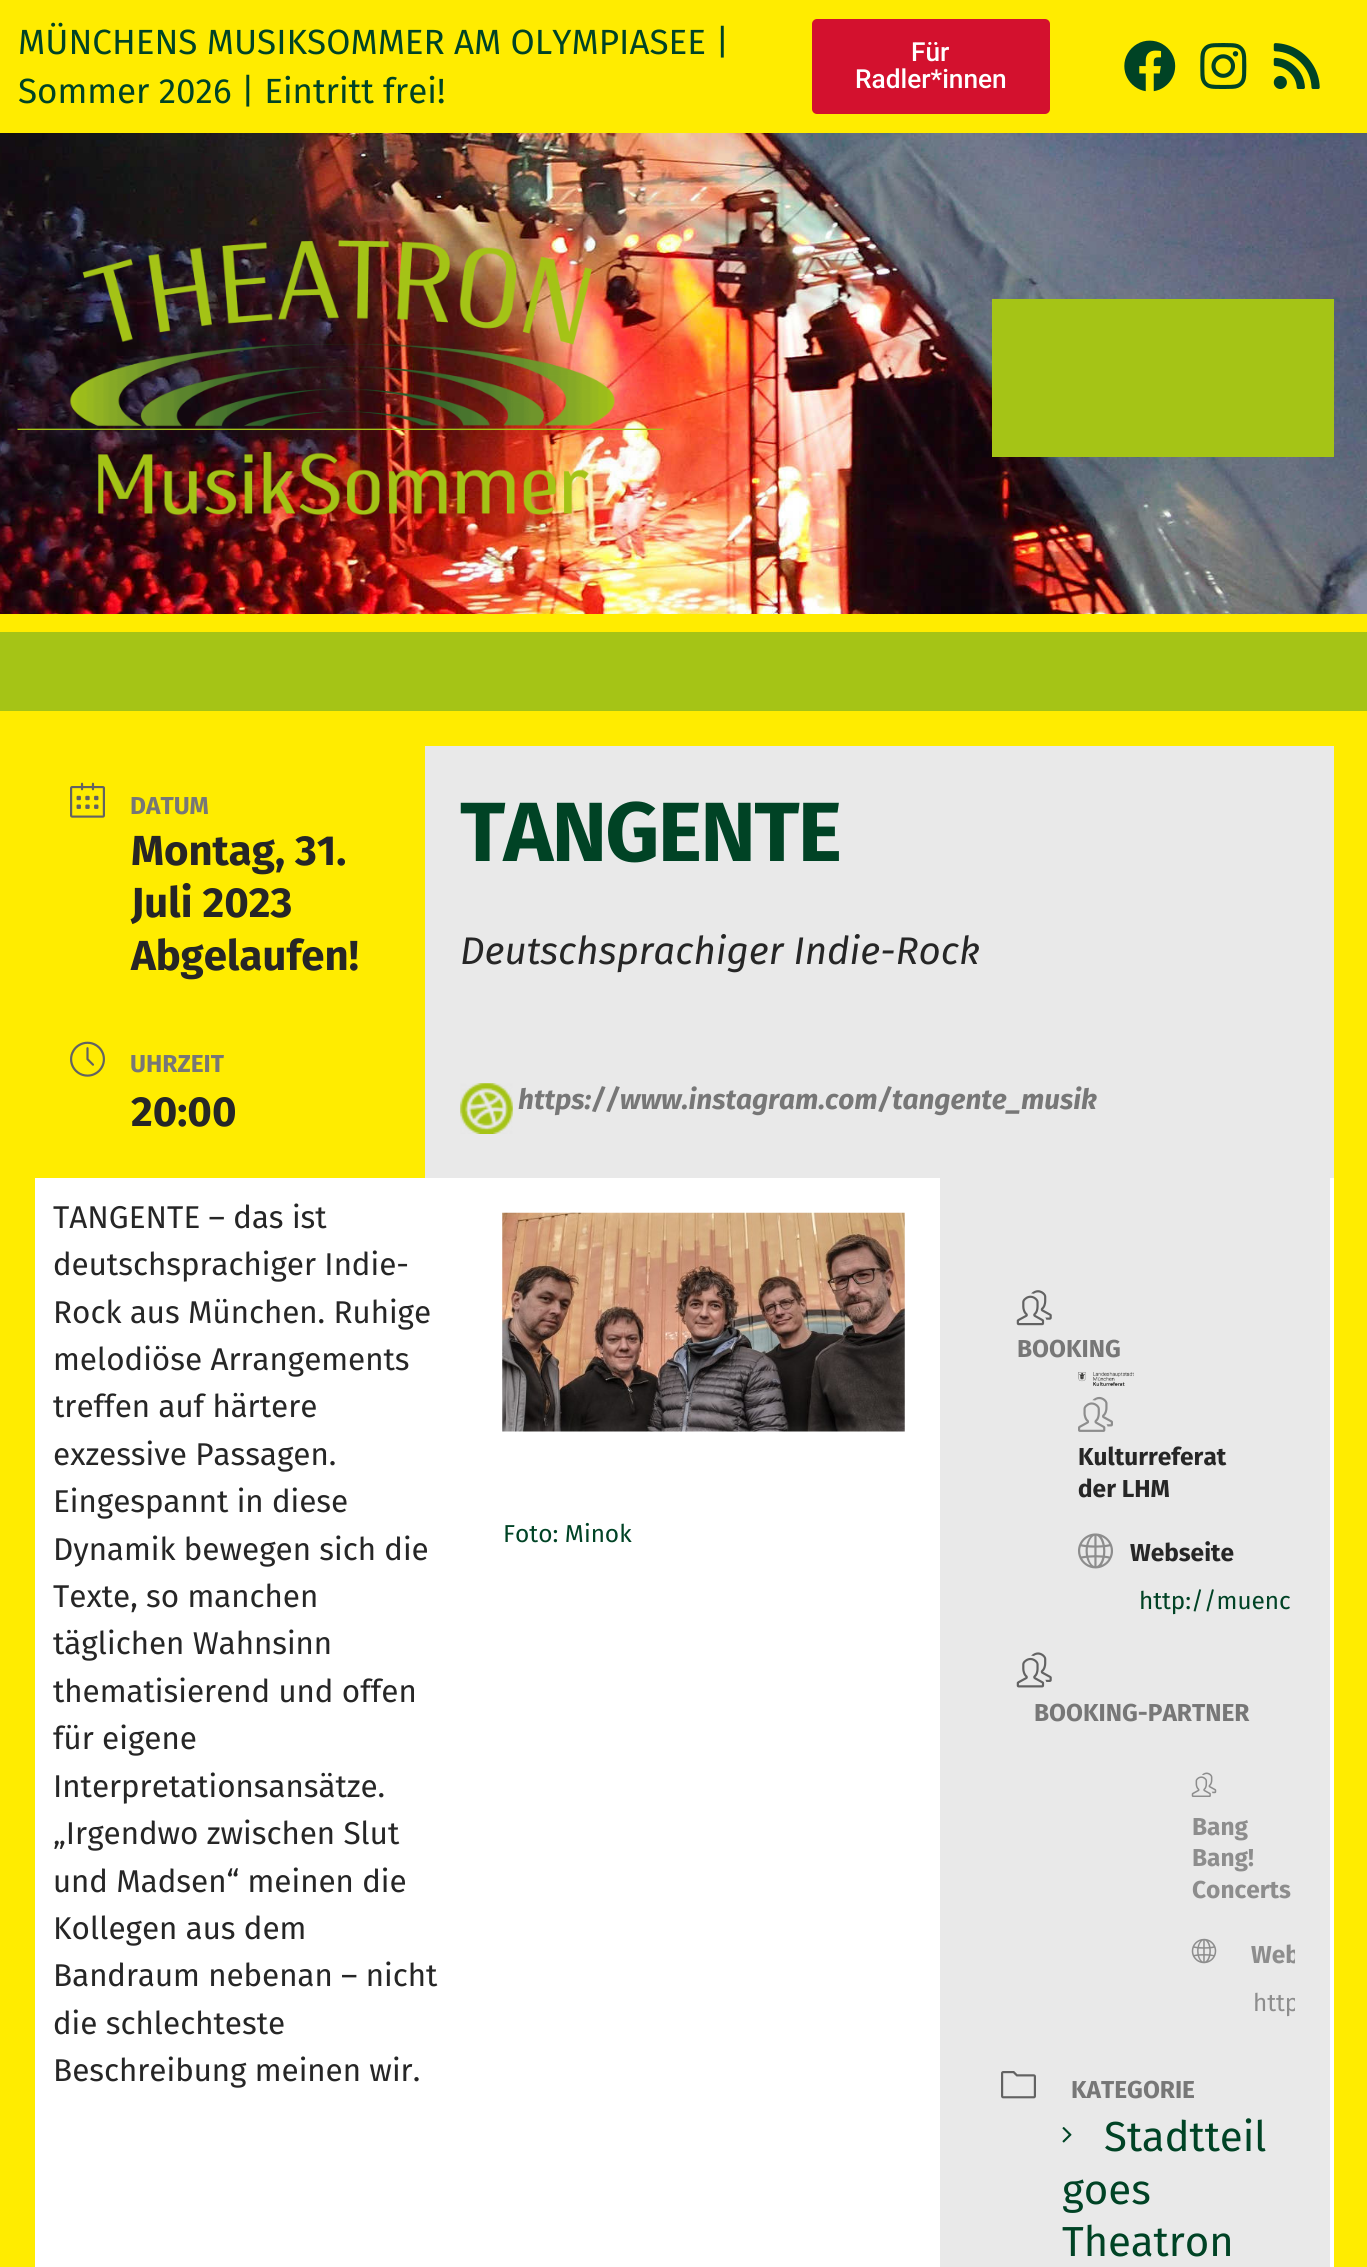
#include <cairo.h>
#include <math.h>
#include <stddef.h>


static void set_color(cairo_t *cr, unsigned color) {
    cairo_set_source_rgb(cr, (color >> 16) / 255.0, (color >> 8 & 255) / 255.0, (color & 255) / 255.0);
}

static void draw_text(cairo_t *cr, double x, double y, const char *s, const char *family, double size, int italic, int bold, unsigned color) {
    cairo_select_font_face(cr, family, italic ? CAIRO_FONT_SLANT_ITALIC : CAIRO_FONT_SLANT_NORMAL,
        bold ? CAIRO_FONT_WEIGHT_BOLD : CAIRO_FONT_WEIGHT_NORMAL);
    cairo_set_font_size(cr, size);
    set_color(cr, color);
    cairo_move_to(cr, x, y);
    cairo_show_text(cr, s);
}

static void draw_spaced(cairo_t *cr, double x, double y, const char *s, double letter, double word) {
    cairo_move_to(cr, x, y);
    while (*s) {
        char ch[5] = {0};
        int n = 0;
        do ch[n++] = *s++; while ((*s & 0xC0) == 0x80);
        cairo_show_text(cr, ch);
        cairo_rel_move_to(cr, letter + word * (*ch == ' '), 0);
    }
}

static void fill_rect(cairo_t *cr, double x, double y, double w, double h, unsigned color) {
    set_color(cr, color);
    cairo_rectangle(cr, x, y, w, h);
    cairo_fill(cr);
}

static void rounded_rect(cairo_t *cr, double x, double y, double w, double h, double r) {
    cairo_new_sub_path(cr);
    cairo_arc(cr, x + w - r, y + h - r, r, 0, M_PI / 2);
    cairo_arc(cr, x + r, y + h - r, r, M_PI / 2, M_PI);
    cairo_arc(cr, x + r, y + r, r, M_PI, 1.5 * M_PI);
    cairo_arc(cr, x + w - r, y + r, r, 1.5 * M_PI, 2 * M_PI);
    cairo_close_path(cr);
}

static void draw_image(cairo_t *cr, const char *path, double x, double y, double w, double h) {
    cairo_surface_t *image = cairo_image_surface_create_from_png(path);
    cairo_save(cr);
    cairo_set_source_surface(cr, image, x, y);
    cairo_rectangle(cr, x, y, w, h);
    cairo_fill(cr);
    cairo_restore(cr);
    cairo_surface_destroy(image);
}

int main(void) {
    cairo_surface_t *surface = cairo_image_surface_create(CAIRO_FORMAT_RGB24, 1367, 2267);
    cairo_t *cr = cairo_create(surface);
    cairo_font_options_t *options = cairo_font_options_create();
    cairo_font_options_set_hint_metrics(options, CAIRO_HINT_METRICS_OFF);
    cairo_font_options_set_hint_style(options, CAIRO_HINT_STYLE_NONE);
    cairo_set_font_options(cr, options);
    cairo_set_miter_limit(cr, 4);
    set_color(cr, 0xA5C416);
    cairo_paint(cr);
    fill_rect(cr, 0, 0, 1367, 133, 0xFFEC00);
    draw_text(cr, 18, 54, "MÜNCHENS MUSIKSOMMER AM OLYMPIASEE |", "Fira Sans", 35, 0, 0, 0x004325);
    draw_text(cr, 18, 103, "Sommer 2026 | Eintritt frei!", "Fira Sans", 35, 0, 0, 0x004325);
    set_color(cr, 0xD3112E);
    rounded_rect(cr, 812, 19, 238, 95, 5);
    cairo_fill(cr);
    draw_text(cr, 911, 61, "Für", "Roboto Medium", 26.25, 0, 0, 0xFFFFFF);
    draw_text(cr, 855, 88, "Radler*innen", "Roboto Medium", 26.25, 0, 0, 0xFFFFFF);
    draw_image(cr, "assets/img1.png", 1124, 40, 52, 52);
    draw_image(cr, "assets/img2.png", 1200, 43, 47, 46);
    draw_image(cr, "assets/img3.png", 1273, 43, 47, 46);
    draw_image(cr, "assets/img4.png", 0, 133, 1367, 481);
    draw_image(cr, "assets/img5.png", 17, 240, 647, 275);
    fill_rect(cr, 992, 299, 342, 158, 0xA5C416);
    fill_rect(cr, 0, 614, 1367, 18, 0xFFEC00);
    fill_rect(cr, 0, 711, 1367, 1556, 0xFFEC00);
    draw_image(cr, "assets/img6.png", 70, 782, 35, 36);
    draw_text(cr, 130, 814, "DATUM", "Fira Sans", 24.5, 0, 1, 0x777777);
    draw_text(cr, 131, 865, "Montag, 31.", "Fira Sans", 42, 0, 1, 0x262626);
    draw_text(cr, 131, 917, "Juli 2023", "Fira Sans", 42, 0, 1, 0x262626);
    draw_text(cr, 131, 970, "Abgelaufen!", "Fira Sans", 42, 0, 1, 0x262626);
    draw_image(cr, "assets/img7.png", 70, 1041, 35, 36);
    draw_text(cr, 130, 1072, "UHRZEIT", "Fira Sans", 24.5, 0, 1, 0x777777);
    draw_text(cr, 131, 1126, "20:00", "Fira Sans", 42, 0, 1, 0x262626);
    fill_rect(cr, 425, 746, 909, 432, 0xE9E9E9);
    cairo_set_font_size(cr, 84);
    set_color(cr, 0x004325);
    draw_spaced(cr, 460, 861, "TANGENTE", -1.75, 0);
    draw_text(cr, 460, 964, "Deutschsprachiger Indie-Rock", "Fira Sans", 38.5, 1, 0, 0x262626);
    draw_image(cr, "assets/img8.png", 460, 1083, 53, 51);
    draw_text(cr, 518, 1109, "https://www.instagram.com/tangente_musik", "Fira Sans", 28, 1, 1, 0x777777);
    fill_rect(cr, 35, 1178, 1299, 1089, 0xFFFFFF);
    draw_text(cr, 53, 1228, "TANGENTE – das ist", "Fira Sans", 31.5, 0, 0, 0x262626);
    draw_text(cr, 53, 1275, "deutschsprachiger Indie-", "Fira Sans", 31.5, 0, 0, 0x262626);
    draw_text(cr, 53, 1323, "Rock aus München. Ruhige", "Fira Sans", 31.5, 0, 0, 0x262626);
    draw_text(cr, 53, 1370, "melodiöse Arrangements", "Fira Sans", 31.5, 0, 0, 0x262626);
    draw_text(cr, 53, 1417, "treffen auf härtere", "Fira Sans", 31.5, 0, 0, 0x262626);
    draw_text(cr, 53, 1465, "exzessive Passagen.", "Fira Sans", 31.5, 0, 0, 0x262626);
    draw_text(cr, 53, 1512, "Eingespannt in diese", "Fira Sans", 31.5, 0, 0, 0x262626);
    draw_text(cr, 53, 1560, "Dynamik bewegen sich die", "Fira Sans", 31.5, 0, 0, 0x262626);
    draw_text(cr, 53, 1607, "Texte, so manchen", "Fira Sans", 31.5, 0, 0, 0x262626);
    draw_text(cr, 53, 1654, "täglichen Wahnsinn", "Fira Sans", 31.5, 0, 0, 0x262626);
    draw_text(cr, 53, 1702, "thematisierend und offen", "Fira Sans", 31.5, 0, 0, 0x262626);
    draw_text(cr, 53, 1749, "für eigene", "Fira Sans", 31.5, 0, 0, 0x262626);
    draw_text(cr, 53, 1797, "Interpretationsansätze.", "Fira Sans", 31.5, 0, 0, 0x262626);
    draw_text(cr, 53, 1844, "„Irgendwo zwischen Slut", "Fira Sans", 31.5, 0, 0, 0x262626);
    draw_text(cr, 53, 1892, "und Madsen“ meinen die", "Fira Sans", 31.5, 0, 0, 0x262626);
    draw_text(cr, 53, 1939, "Kollegen aus dem", "Fira Sans", 31.5, 0, 0, 0x262626);
    draw_text(cr, 53, 1986, "Bandraum nebenan – nicht", "Fira Sans", 31.5, 0, 0, 0x262626);
    draw_text(cr, 53, 2034, "die schlechteste", "Fira Sans", 31.5, 0, 0, 0x262626);
    draw_text(cr, 53, 2081, "Beschreibung meinen wir.", "Fira Sans", 31.5, 0, 0, 0x262626);
    draw_image(cr, "assets/img9.png", 502, 1212, 403, 220);
    draw_text(cr, 503, 1542, "Foto: Minok", "Fira Sans", 24.5, 0, 0, 0x004325);
    fill_rect(cr, 940, 1178, 390, 1089, 0xE9E9E9);
    draw_image(cr, "assets/img10.png", 1016, 1290, 36, 36);
    draw_text(cr, 1017, 1357, "BOOKING", "Fira Sans", 24.5, 0, 1, 0x777777);
    draw_image(cr, "assets/img11.png", 1078, 1372, 56, 14);
    draw_image(cr, "assets/img12.png", 1078, 1396, 35, 36);
    draw_text(cr, 1078, 1465, "Kulturreferat", "Fira Sans", 24.5, 0, 1, 0x262626);
    draw_text(cr, 1078, 1497, "der LHM", "Fira Sans", 24.5, 0, 1, 0x262626);
    draw_image(cr, "assets/img13.png", 1078, 1533, 35, 36);
    draw_text(cr, 1130, 1561, "Webseite", "Fira Sans", 24.5, 0, 1, 0x262626);
    draw_text(cr, 1139, 1609, "http://muenc", "Fira Sans", 24.5, 0, 0, 0x004325);
    draw_image(cr, "assets/img14.png", 1016, 1652, 36, 36);
    draw_text(cr, 1034, 1721, "BOOKING-PARTNER", "Fira Sans", 24.5, 0, 1, 0x777777);
    draw_image(cr, "assets/img15.png", 1191, 1772, 26, 25);
    draw_text(cr, 1192, 1835, "Bang", "Fira Sans", 24.5, 0, 1, 0x8D8D8D);
    draw_text(cr, 1192, 1866, "Bang!", "Fira Sans", 24.5, 0, 1, 0x8D8D8D);
    draw_text(cr, 1192, 1898, "Concerts", "Fira Sans", 24.5, 0, 1, 0x8D8D8D);
    draw_image(cr, "assets/img16.png", 1191, 1938, 26, 26);
    cairo_save(cr);
    cairo_rectangle(cr, 975, 1265, 320, 800);
    cairo_clip(cr);
    draw_text(cr, 1251, 1963, "Web", "Fira Sans", 24.5, 0, 1, 0x8D8D8D);
    draw_text(cr, 1253, 2011, "http", "Fira Sans", 24.5, 0, 0, 0x8D8D8D);
    cairo_restore(cr);
    draw_image(cr, "assets/img17.png", 1001, 2071, 35, 28);
    draw_text(cr, 1071, 2098, "KATEGORIE", "Fira Sans", 24.5, 0, 1, 0x777777);
    draw_image(cr, "assets/img18.png", 1062, 2127, 10, 16);
    draw_text(cr, 1104, 2151, "Stadtteil", "Fira Sans", 42, 0, 0, 0x004325);
    draw_text(cr, 1062, 2204, "goes", "Fira Sans", 42, 0, 0, 0x004325);
    draw_text(cr, 1062, 2256, "Theatron", "Fira Sans", 42, 0, 0, 0x004325);
    cairo_surface_write_to_png(surface, "output.png");
    cairo_font_options_destroy(options);
    cairo_destroy(cr);
    cairo_surface_destroy(surface);
    return 0;
}
